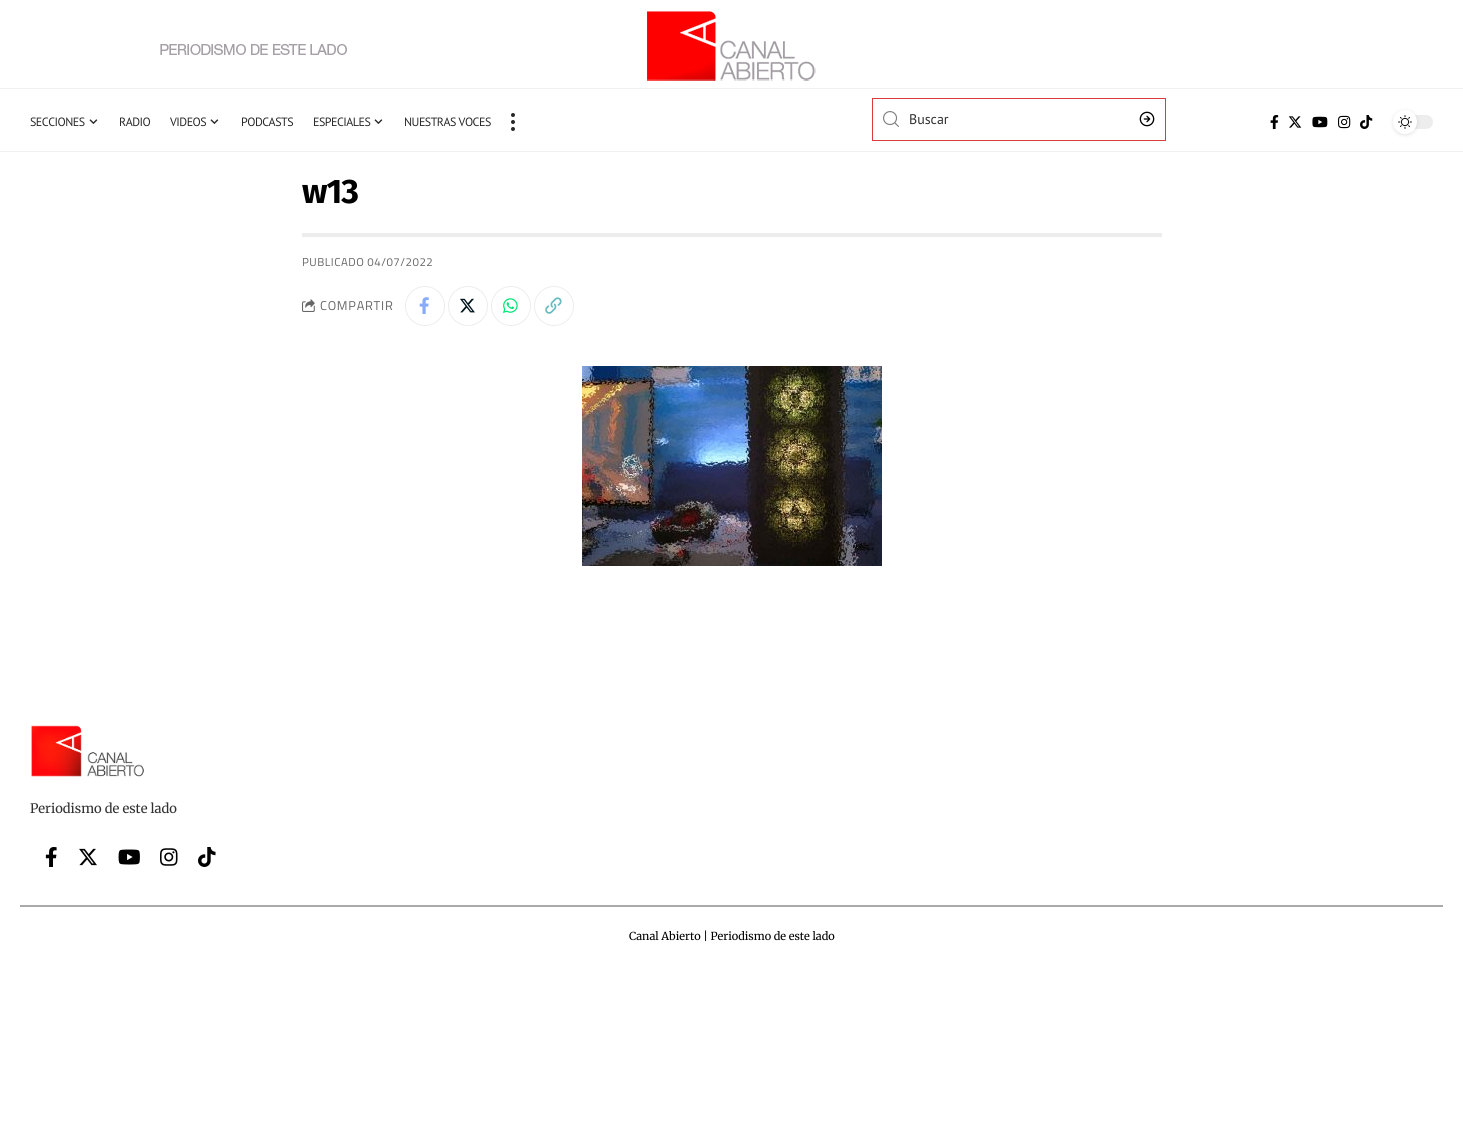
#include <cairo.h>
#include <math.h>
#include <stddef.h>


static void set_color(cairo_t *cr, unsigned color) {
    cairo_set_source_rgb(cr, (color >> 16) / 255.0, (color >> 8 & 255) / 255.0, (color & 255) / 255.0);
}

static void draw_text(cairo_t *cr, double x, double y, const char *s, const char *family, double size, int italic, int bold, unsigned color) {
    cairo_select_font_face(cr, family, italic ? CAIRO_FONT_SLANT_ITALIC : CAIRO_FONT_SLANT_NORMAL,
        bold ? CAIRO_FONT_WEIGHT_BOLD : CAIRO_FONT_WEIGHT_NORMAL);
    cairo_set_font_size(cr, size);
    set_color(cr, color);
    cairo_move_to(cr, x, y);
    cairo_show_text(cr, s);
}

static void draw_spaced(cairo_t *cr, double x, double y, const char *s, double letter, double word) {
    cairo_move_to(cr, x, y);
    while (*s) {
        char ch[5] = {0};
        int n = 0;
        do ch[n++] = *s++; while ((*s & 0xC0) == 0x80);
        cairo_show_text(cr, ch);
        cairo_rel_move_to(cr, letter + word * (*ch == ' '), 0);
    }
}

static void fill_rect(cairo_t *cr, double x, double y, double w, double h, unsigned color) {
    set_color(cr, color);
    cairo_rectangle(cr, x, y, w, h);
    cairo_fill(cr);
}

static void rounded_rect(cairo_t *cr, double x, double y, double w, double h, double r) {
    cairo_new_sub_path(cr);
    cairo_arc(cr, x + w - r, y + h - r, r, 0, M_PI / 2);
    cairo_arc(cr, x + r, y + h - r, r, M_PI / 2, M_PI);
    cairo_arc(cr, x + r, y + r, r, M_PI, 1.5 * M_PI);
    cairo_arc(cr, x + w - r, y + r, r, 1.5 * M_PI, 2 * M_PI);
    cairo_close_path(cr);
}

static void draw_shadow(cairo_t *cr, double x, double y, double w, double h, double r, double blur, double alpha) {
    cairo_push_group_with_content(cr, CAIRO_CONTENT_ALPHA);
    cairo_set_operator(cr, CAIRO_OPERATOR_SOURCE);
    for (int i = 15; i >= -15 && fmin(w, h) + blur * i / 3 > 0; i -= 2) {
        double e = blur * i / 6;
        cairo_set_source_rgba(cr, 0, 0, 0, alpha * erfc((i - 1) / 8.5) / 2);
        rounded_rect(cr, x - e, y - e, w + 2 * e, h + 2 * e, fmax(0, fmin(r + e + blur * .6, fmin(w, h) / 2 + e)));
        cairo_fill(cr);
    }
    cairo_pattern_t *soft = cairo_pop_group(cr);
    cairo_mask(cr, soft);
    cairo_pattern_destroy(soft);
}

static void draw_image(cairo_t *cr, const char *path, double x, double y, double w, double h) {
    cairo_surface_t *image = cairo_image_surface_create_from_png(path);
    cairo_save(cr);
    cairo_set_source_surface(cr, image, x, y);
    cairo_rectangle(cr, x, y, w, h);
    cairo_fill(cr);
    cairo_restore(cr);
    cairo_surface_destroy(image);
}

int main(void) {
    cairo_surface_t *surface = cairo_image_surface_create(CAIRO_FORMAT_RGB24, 1463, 1138);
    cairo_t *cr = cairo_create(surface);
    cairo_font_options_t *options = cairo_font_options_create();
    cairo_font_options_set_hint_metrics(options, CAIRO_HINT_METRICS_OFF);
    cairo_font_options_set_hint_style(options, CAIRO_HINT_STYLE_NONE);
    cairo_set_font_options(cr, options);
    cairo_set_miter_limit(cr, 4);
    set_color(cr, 0xFFFFFF);
    cairo_paint(cr);
    fill_rect(cr, 0, 88, 1463, 1, 0xF0F0F0);
    draw_image(cr, "assets/img1.png", 160, 44, 187, 11);
    draw_image(cr, "assets/img2.png", 647, 11, 169, 70);
    fill_rect(cr, 0, 151, 1463, 1, 0xF0F0F0);
    cairo_select_font_face(cr, "PT Sans", CAIRO_FONT_SLANT_NORMAL, CAIRO_FONT_WEIGHT_NORMAL);
    cairo_set_font_size(cr, 12);
    set_color(cr, 0x282828);
    draw_spaced(cr, 30, 126, "SECCIONES", -0.5, 0);
    draw_image(cr, "assets/img3.png", 89, 119, 9, 5);
    draw_spaced(cr, 119, 126, "RADIO", -0.5, 0);
    draw_spaced(cr, 170, 126, "VIDEOS", -0.5, 0);
    draw_image(cr, "assets/img3.png", 210, 119, 9, 5);
    draw_spaced(cr, 241, 126, "PODCASTS", -0.5, 0);
    draw_spaced(cr, 313, 126, "ESPECIALES", -0.5, 0);
    draw_image(cr, "assets/img3.png", 374, 119, 9, 5);
    draw_spaced(cr, 404, 126, "NUESTRAS VOCES", -0.5, 0);
    cairo_new_path(cr);
    cairo_arc(cr, 513, 115, 2, 0, 2 * M_PI);
    cairo_fill(cr);
    cairo_arc(cr, 513, 122, 2, 0, 2 * M_PI);
    cairo_fill(cr);
    cairo_arc(cr, 513, 129, 2, 0, 2 * M_PI);
    cairo_fill(cr);
    cairo_rectangle(cr, 872.5, 98.5, 293, 42);
    set_color(cr, 0xDE3C3C);
    cairo_set_line_width(cr, 1);
    cairo_stroke(cr);
    draw_image(cr, "assets/img4.png", 883, 111, 16, 16);
    draw_text(cr, 909, 124, "Buscar", "PT Sans", 14, 0, 0, 0x303030);
    draw_image(cr, "assets/img5.png", 1139, 111, 16, 16);
    draw_image(cr, "assets/img6.png", 1270, 115, 9, 14);
    draw_image(cr, "assets/img7.png", 1288, 116, 14, 12);
    draw_image(cr, "assets/img8.png", 1312, 116, 16, 12);
    draw_image(cr, "assets/img9.png", 1338, 115, 13, 14);
    draw_image(cr, "assets/img10.png", 1360, 115, 13, 14);
    set_color(cr, 0xEDEDED);
    rounded_rect(cr, 1393, 115, 40, 14, 7);
    cairo_fill(cr);
    set_color(cr, 0x000000);
    draw_shadow(cr, 1393, 111, 24, 24, 12, 2, 0.12);
    set_color(cr, 0xFFFFFF);
    cairo_arc(cr, 1405, 122, 12, 0, 2 * M_PI);
    cairo_fill(cr);
    draw_image(cr, "assets/img11.png", 1398, 115, 14, 14);
    cairo_select_font_face(cr, "Fira Sans", CAIRO_FONT_SLANT_NORMAL, CAIRO_FONT_WEIGHT_BOLD);
    cairo_set_font_size(cr, 34);
    set_color(cr, 0x000000);
    draw_spaced(cr, 302, 203, "w13", -1, 0);
    fill_rect(cr, 302, 233, 860, 4, 0xEDEDED);
    cairo_select_font_face(cr, "Titillium Web", CAIRO_FONT_SLANT_NORMAL, CAIRO_FONT_WEIGHT_NORMAL);
    cairo_set_font_size(cr, 11.5);
    set_color(cr, 0x666666);
    draw_spaced(cr, 302, 266, "PUBLICADO 04/07/2022", 0.5, 0);
    draw_image(cr, "assets/img12.png", 302, 299, 13, 13);
    cairo_set_font_size(cr, 12.75);
    draw_spaced(cr, 320, 310, "COMPARTIR", 0.75, 0);
    cairo_new_path(cr);
    cairo_arc(cr, 425, 306, 19.5, 0, 2 * M_PI);
    set_color(cr, 0xEDEDED);
    cairo_stroke(cr);
    draw_image(cr, "assets/img13.png", 419, 297, 10, 17);
    cairo_arc(cr, 468, 306, 19.5, 0, 2 * M_PI);
    cairo_stroke(cr);
    draw_image(cr, "assets/img14.png", 460, 298, 15, 15);
    cairo_arc(cr, 511, 306, 19.5, 0, 2 * M_PI);
    cairo_stroke(cr);
    draw_image(cr, "assets/img15.png", 503, 298, 15, 15);
    cairo_arc(cr, 554, 306, 19.5, 0, 2 * M_PI);
    cairo_stroke(cr);
    draw_image(cr, "assets/img16.png", 545, 297, 17, 17);
    draw_image(cr, "assets/img17.png", 582, 366, 300, 200);
    draw_image(cr, "assets/img18.png", 31, 725, 113, 52);
    draw_text(cr, 30, 813, "Periodismo de este lado", "Merriweather", 13, 0, 0, 0x303030);
    draw_image(cr, "assets/img19.png", 45, 847, 12, 20);
    draw_image(cr, "assets/img20.png", 79, 848, 18, 18);
    draw_image(cr, "assets/img21.png", 118, 849, 22, 16);
    draw_image(cr, "assets/img22.png", 160, 848, 18, 18);
    draw_image(cr, "assets/img23.png", 198, 847, 18, 20);
    fill_rect(cr, 20, 905, 1423, 2, 0xAAAAAA);
    draw_text(cr, 629, 940, "Canal Abierto | Periodismo de este lado", "Merriweather", 11, 0, 0, 0x000000);
    cairo_surface_write_to_png(surface, "output.png");
    cairo_font_options_destroy(options);
    cairo_destroy(cr);
    cairo_surface_destroy(surface);
    return 0;
}
